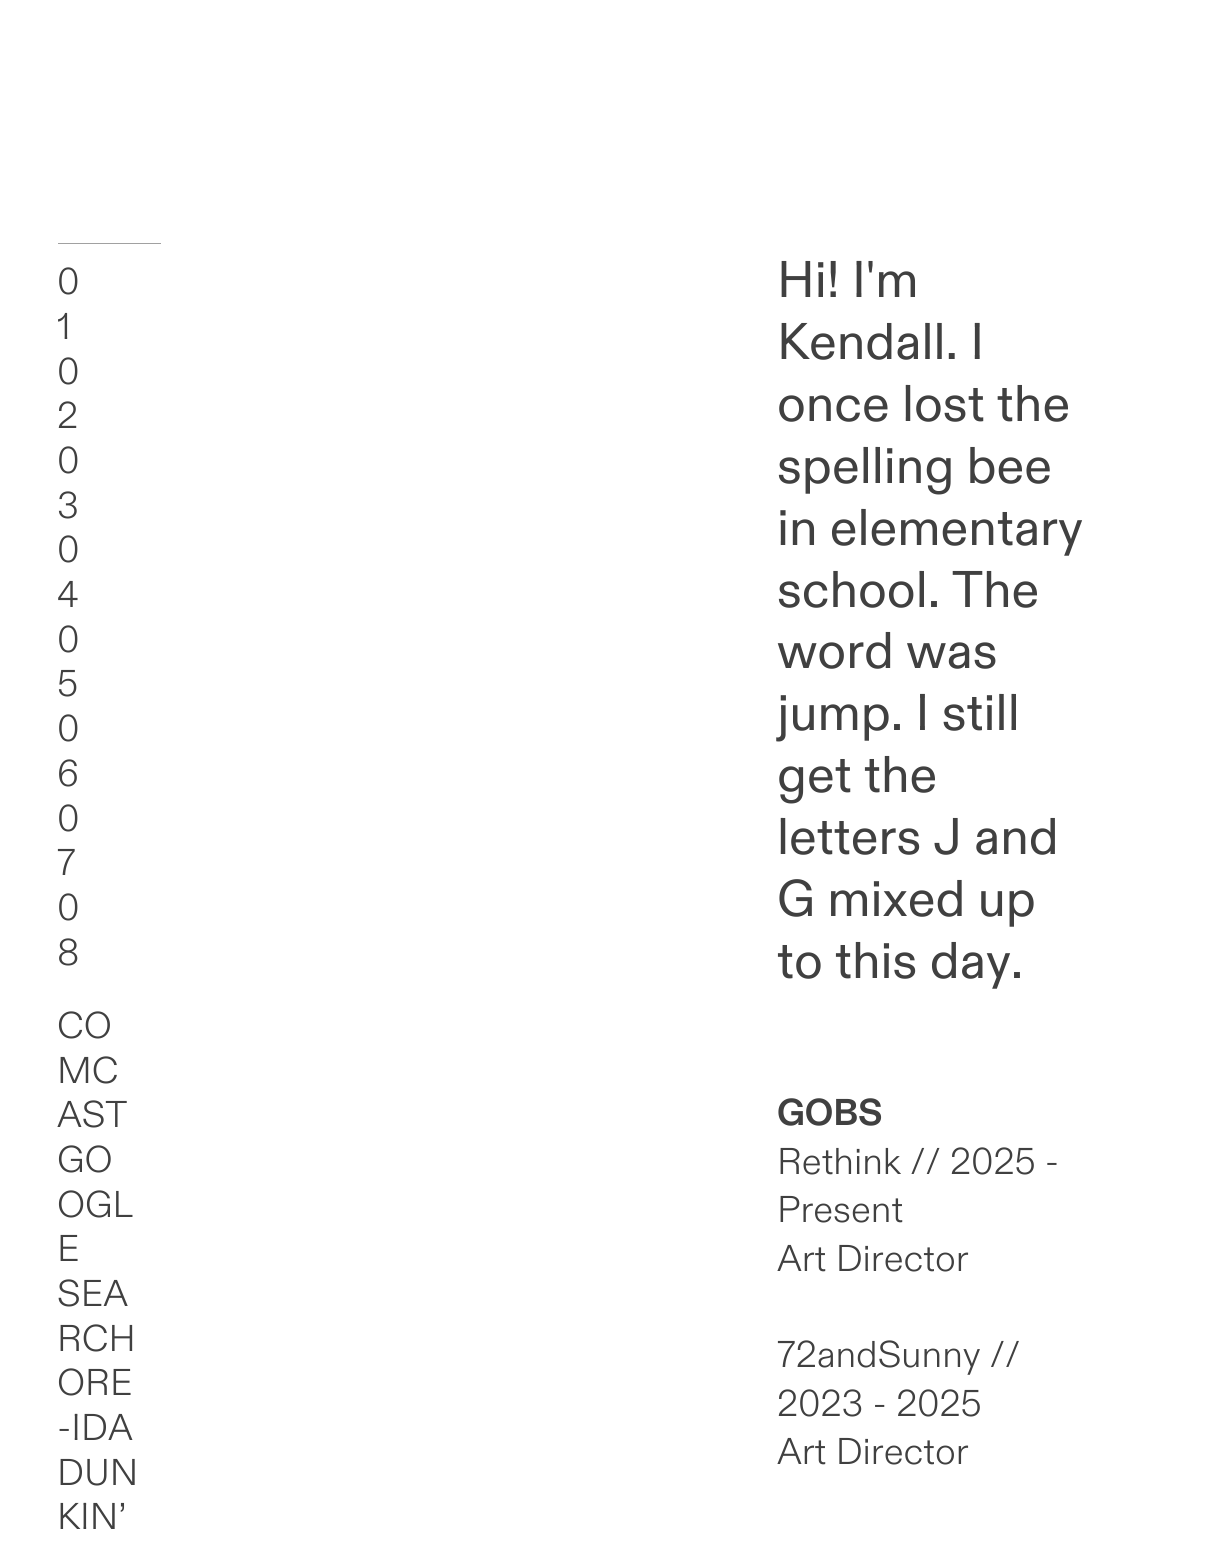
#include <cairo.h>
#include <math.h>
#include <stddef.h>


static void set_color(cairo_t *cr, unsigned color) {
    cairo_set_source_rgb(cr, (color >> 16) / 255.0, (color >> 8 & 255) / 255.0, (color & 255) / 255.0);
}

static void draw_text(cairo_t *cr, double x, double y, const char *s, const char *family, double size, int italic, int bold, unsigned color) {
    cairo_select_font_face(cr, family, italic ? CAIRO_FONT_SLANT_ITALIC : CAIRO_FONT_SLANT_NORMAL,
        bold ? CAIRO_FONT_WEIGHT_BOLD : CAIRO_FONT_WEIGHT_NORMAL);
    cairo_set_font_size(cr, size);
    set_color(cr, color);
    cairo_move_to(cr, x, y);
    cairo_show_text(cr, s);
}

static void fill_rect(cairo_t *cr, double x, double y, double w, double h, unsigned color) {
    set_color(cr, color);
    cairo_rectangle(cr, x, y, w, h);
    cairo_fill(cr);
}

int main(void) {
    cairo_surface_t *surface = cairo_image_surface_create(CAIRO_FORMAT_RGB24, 1212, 1552);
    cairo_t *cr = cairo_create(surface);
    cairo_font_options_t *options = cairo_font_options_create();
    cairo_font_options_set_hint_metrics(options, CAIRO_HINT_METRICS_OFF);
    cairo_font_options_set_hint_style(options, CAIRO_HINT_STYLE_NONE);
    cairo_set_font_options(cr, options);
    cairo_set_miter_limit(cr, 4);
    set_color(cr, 0xFFFFFF);
    cairo_paint(cr);
    fill_rect(cr, 58, 243, 103, 1, 0xA1A1A1);
    draw_text(cr, 57, 294, "0", "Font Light", 37.25, 0, 0, 0x404040);
    draw_text(cr, 57, 339, "1", "Font Light", 37.25, 0, 0, 0x404040);
    draw_text(cr, 57, 384, "0", "Font Light", 37.25, 0, 0, 0x404040);
    draw_text(cr, 57, 428, "2", "Font Light", 37.25, 0, 0, 0x404040);
    draw_text(cr, 57, 473, "0", "Font Light", 37.25, 0, 0, 0x404040);
    draw_text(cr, 57, 518, "3", "Font Light", 37.25, 0, 0, 0x404040);
    draw_text(cr, 57, 562, "0", "Font Light", 37.25, 0, 0, 0x404040);
    draw_text(cr, 57, 607, "4", "Font Light", 37.25, 0, 0, 0x404040);
    draw_text(cr, 57, 652, "0", "Font Light", 37.25, 0, 0, 0x404040);
    draw_text(cr, 57, 696, "5", "Font Light", 37.25, 0, 0, 0x404040);
    draw_text(cr, 57, 741, "0", "Font Light", 37.25, 0, 0, 0x404040);
    draw_text(cr, 57, 786, "6", "Font Light", 37.25, 0, 0, 0x404040);
    draw_text(cr, 57, 831, "0", "Font Light", 37.25, 0, 0, 0x404040);
    draw_text(cr, 57, 875, "7", "Font Light", 37.25, 0, 0, 0x404040);
    draw_text(cr, 57, 920, "0", "Font Light", 37.25, 0, 0, 0x404040);
    draw_text(cr, 57, 965, "8", "Font Light", 37.25, 0, 0, 0x404040);
    draw_text(cr, 57, 1038, "CO", "Font Light", 37.25, 0, 0, 0x404040);
    draw_text(cr, 57, 1083, "MC", "Font Light", 37.25, 0, 0, 0x404040);
    draw_text(cr, 57, 1127, "AST", "Font Light", 37.25, 0, 0, 0x404040);
    draw_text(cr, 57, 1172, "GO", "Font Light", 37.25, 0, 0, 0x404040);
    draw_text(cr, 57, 1217, "OGL", "Font Light", 37.25, 0, 0, 0x404040);
    draw_text(cr, 57, 1261, "E", "Font Light", 37.25, 0, 0, 0x404040);
    draw_text(cr, 57, 1306, "SEA", "Font Light", 37.25, 0, 0, 0x404040);
    draw_text(cr, 57, 1351, "RCH", "Font Light", 37.25, 0, 0, 0x404040);
    draw_text(cr, 57, 1395, "ORE", "Font Light", 37.25, 0, 0, 0x404040);
    draw_text(cr, 57, 1440, "-IDA", "Font Light", 37.25, 0, 0, 0x404040);
    draw_text(cr, 57, 1485, "DUN", "Font Light", 37.25, 0, 0, 0x404040);
    draw_text(cr, 57, 1529, "KIN’", "Font Light", 37.25, 0, 0, 0x404040);
    draw_text(cr, 777, 297, "Hi! I'm", "Font", 51.5, 0, 0, 0x404040);
    draw_text(cr, 777, 359, "Kendall. I", "Font", 51.5, 0, 0, 0x404040);
    draw_text(cr, 777, 421, "once lost the", "Font", 51.5, 0, 0, 0x404040);
    draw_text(cr, 777, 483, "spelling bee", "Font", 51.5, 0, 0, 0x404040);
    draw_text(cr, 777, 545, "in elementary", "Font", 51.5, 0, 0, 0x404040);
    draw_text(cr, 777, 607, "school. The", "Font", 51.5, 0, 0, 0x404040);
    draw_text(cr, 777, 668, "word was", "Font", 51.5, 0, 0, 0x404040);
    draw_text(cr, 777, 730, "jump. I still", "Font", 51.5, 0, 0, 0x404040);
    draw_text(cr, 777, 792, "get the", "Font", 51.5, 0, 0, 0x404040);
    draw_text(cr, 777, 854, "letters J and", "Font", 51.5, 0, 0, 0x404040);
    draw_text(cr, 777, 916, "G mixed up", "Font", 51.5, 0, 0, 0x404040);
    draw_text(cr, 777, 978, "to this day.", "Font", 51.5, 0, 0, 0x404040);
    draw_text(cr, 777, 1125, "GOBS", "Font", 37.25, 0, 1, 0x404040);
    draw_text(cr, 777, 1174, "Rethink // 2025 -", "Font Light", 37.25, 0, 0, 0x404040);
    draw_text(cr, 777, 1222, "Present", "Font Light", 37.25, 0, 0, 0x404040);
    draw_text(cr, 777, 1271, "Art Director", "Font Light", 37.25, 0, 0, 0x404040);
    draw_text(cr, 777, 1367, "72andSunny //", "Font Light", 37.25, 0, 0, 0x404040);
    draw_text(cr, 777, 1416, "2023 - 2025", "Font Light", 37.25, 0, 0, 0x404040);
    draw_text(cr, 777, 1464, "Art Director", "Font Light", 37.25, 0, 0, 0x404040);
    cairo_surface_write_to_png(surface, "output.png");
    cairo_font_options_destroy(options);
    cairo_destroy(cr);
    cairo_surface_destroy(surface);
    return 0;
}
